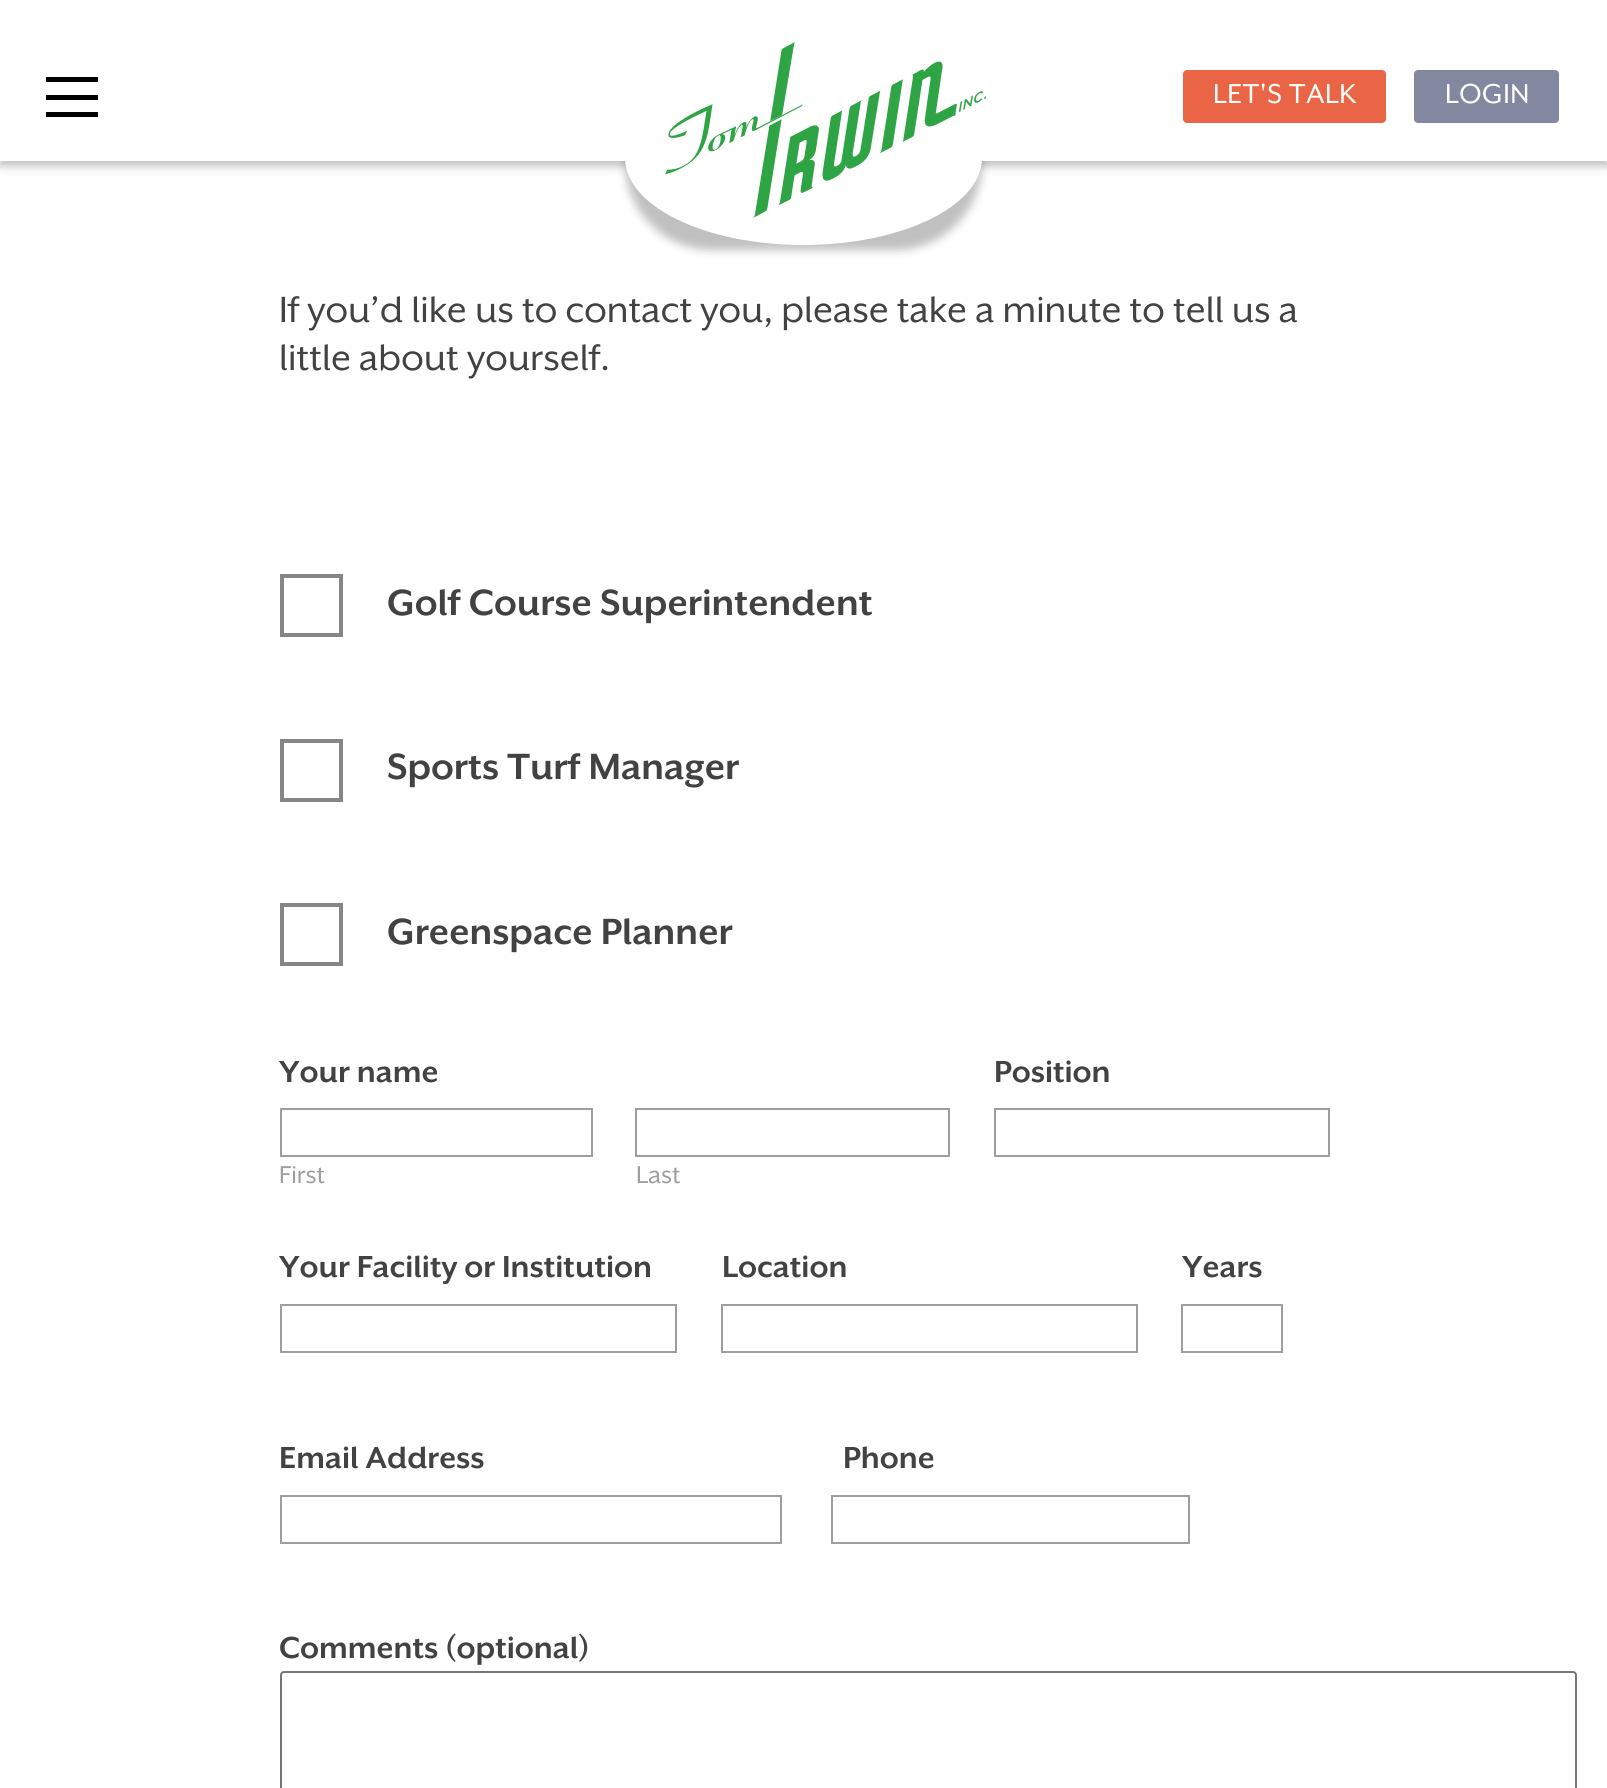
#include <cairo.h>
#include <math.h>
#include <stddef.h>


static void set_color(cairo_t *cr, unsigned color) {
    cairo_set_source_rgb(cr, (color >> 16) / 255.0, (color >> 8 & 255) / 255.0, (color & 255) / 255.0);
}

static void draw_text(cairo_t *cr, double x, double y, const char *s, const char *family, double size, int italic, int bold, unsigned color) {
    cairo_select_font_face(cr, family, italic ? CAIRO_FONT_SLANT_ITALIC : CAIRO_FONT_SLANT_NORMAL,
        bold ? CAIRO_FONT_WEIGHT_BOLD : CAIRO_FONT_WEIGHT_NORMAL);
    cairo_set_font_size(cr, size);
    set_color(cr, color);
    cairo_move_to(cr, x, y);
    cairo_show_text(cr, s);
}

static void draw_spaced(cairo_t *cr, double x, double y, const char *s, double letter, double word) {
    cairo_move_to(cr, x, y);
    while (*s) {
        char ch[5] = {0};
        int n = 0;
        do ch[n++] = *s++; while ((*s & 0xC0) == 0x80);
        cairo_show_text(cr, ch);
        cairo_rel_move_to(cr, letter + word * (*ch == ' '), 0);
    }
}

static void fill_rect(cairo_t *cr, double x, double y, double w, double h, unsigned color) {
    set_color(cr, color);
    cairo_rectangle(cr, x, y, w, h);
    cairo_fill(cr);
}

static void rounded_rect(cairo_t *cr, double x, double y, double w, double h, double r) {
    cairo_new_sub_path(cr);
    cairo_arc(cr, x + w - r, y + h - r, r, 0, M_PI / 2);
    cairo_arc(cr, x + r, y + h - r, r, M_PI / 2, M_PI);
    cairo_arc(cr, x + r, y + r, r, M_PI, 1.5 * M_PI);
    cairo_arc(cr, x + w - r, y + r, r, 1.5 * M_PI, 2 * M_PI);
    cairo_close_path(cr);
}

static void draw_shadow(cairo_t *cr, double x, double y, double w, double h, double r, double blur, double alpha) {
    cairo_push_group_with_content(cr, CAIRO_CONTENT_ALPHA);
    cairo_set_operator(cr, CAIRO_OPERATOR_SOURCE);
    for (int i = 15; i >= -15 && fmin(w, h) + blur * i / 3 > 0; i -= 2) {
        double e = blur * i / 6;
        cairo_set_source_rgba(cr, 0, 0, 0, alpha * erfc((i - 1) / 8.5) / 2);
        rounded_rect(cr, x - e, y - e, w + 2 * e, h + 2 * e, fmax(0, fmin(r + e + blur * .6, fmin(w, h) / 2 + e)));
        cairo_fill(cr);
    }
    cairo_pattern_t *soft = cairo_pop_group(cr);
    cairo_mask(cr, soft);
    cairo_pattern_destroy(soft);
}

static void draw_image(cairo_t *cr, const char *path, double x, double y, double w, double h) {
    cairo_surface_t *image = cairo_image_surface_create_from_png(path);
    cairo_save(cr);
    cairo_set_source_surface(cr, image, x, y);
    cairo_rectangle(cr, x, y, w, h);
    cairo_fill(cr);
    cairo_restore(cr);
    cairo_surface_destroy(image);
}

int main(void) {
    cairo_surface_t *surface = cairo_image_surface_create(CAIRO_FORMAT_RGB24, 1607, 1788);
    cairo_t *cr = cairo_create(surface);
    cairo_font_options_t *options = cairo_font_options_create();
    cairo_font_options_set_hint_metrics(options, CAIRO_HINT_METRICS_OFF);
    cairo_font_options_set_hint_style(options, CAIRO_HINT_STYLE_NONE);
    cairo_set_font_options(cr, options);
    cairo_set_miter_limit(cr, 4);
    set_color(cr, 0xFFFFFF);
    cairo_paint(cr);
    set_color(cr, 0x000000);
    draw_shadow(cr, 0, 5, 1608, 161, 0, 4.5, 0.25);
    fill_rect(cr, 0, 0, 1607, 161, 0xFFFFFF);
    fill_rect(cr, 46, 95, 52, 5, 0x000000);
    fill_rect(cr, 46, 77, 52, 5, 0x000000);
    fill_rect(cr, 46, 112, 52, 5, 0x000000);
    set_color(cr, 0x000000);
    draw_shadow(cr, 625, 75, 357, 175, 87.5, 4.5, 0.25);
    set_color(cr, 0xFFFFFF);
    cairo_new_path(cr);
    cairo_move_to(cr, 625, 70);
    cairo_line_to(cr, 982, 70);
    cairo_line_to(cr, 982, 158);
    cairo_curve_to(cr, 982, 206, 902, 245, 803, 245);
    cairo_curve_to(cr, 705, 245, 625, 206, 625, 158);
    cairo_close_path(cr);
    cairo_fill(cr);
    fill_rect(cr, 617, 67, 373, 94, 0xFFFFFF);
    draw_image(cr, "assets/img1.png", 665, 42, 322, 176);
    set_color(cr, 0xE96545);
    rounded_rect(cr, 1185, 72, 199, 49, 2);
    cairo_fill_preserve(cr);
    cairo_set_line_width(cr, 4);
    cairo_stroke(cr);
    cairo_select_font_face(cr, "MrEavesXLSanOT", CAIRO_FONT_SLANT_NORMAL, CAIRO_FONT_WEIGHT_NORMAL);
    cairo_set_font_size(cr, 31.5);
    set_color(cr, 0xFFFFFF);
    draw_spaced(cr, 1213, 103, "LET'S TALK", 0.6, 0);
    set_color(cr, 0x8288A0);
    rounded_rect(cr, 1416, 72, 141, 49, 2);
    cairo_fill_preserve(cr);
    cairo_stroke(cr);
    set_color(cr, 0xFFFFFF);
    draw_spaced(cr, 1445, 103, "LOGIN", 0.6, 0);
    draw_text(cr, 279, 322, "If you’d like us to contact you, please take a minute to tell us a", "MrEavesXLSanOT", 42, 0, 0, 0x424242);
    draw_text(cr, 279, 370, "little about yourself.", "MrEavesXLSanOT", 42, 0, 0, 0x424242);
    cairo_rectangle(cr, 282, 576, 59, 59);
    set_color(cr, 0x868686);
    cairo_stroke(cr);
    draw_text(cr, 387, 615, "Golf Course Superintendent", "MrEavesXLSanOT", 42, 0, 1, 0x424242);
    cairo_rectangle(cr, 282, 741, 59, 59);
    set_color(cr, 0x868686);
    cairo_stroke(cr);
    draw_text(cr, 387, 779, "Sports Turf Manager", "MrEavesXLSanOT", 42, 0, 1, 0x424242);
    cairo_rectangle(cr, 282, 905, 59, 59);
    set_color(cr, 0x868686);
    cairo_stroke(cr);
    draw_text(cr, 387, 944, "Greenspace Planner", "MrEavesXLSanOT", 42, 0, 1, 0x424242);
    draw_text(cr, 279, 1082, "Your name", "MrEavesXLSanOT", 35, 0, 1, 0x424242);
    cairo_rectangle(cr, 281, 1109, 311, 47);
    set_color(cr, 0xA09D9D);
    cairo_set_line_width(cr, 2);
    cairo_stroke(cr);
    draw_text(cr, 279, 1183, "First", "MrEavesXLSanOT", 28, 0, 0, 0xA09D9D);
    cairo_rectangle(cr, 636, 1109, 313, 47);
    cairo_stroke(cr);
    draw_text(cr, 636, 1183, "Last", "MrEavesXLSanOT", 28, 0, 0, 0xA09D9D);
    draw_text(cr, 994, 1082, "Position", "MrEavesXLSanOT", 35, 0, 1, 0x424242);
    cairo_rectangle(cr, 995, 1109, 334, 47);
    set_color(cr, 0xA09D9D);
    cairo_stroke(cr);
    draw_text(cr, 279, 1277, "Your Facility or Institution", "MrEavesXLSanOT", 35, 0, 1, 0x424242);
    cairo_rectangle(cr, 281, 1305, 395, 47);
    set_color(cr, 0xA09D9D);
    cairo_stroke(cr);
    draw_text(cr, 722, 1277, "Location", "MrEavesXLSanOT", 35, 0, 1, 0x424242);
    cairo_rectangle(cr, 722, 1305, 415, 47);
    set_color(cr, 0xA09D9D);
    cairo_stroke(cr);
    draw_text(cr, 1182, 1277, "Years", "MrEavesXLSanOT", 35, 0, 1, 0x424242);
    cairo_rectangle(cr, 1182, 1305, 100, 47);
    set_color(cr, 0xA09D9D);
    cairo_stroke(cr);
    draw_text(cr, 279, 1468, "Email Address", "MrEavesXLSanOT", 35, 0, 1, 0x424242);
    cairo_rectangle(cr, 281, 1496, 500, 47);
    set_color(cr, 0xA09D9D);
    cairo_stroke(cr);
    draw_text(cr, 843, 1468, "Phone", "MrEavesXLSanOT", 35, 0, 1, 0x424242);
    cairo_rectangle(cr, 832, 1496, 357, 47);
    set_color(cr, 0xA09D9D);
    cairo_stroke(cr);
    draw_text(cr, 279, 1658, "Comments (optional)", "MrEavesXLSanOT", 35, 0, 1, 0x424242);
    rounded_rect(cr, 281, 1672, 1295, 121, 3);
    set_color(cr, 0x767676);
    cairo_stroke(cr);
    cairo_surface_write_to_png(surface, "output.png");
    cairo_font_options_destroy(options);
    cairo_destroy(cr);
    cairo_surface_destroy(surface);
    return 0;
}
